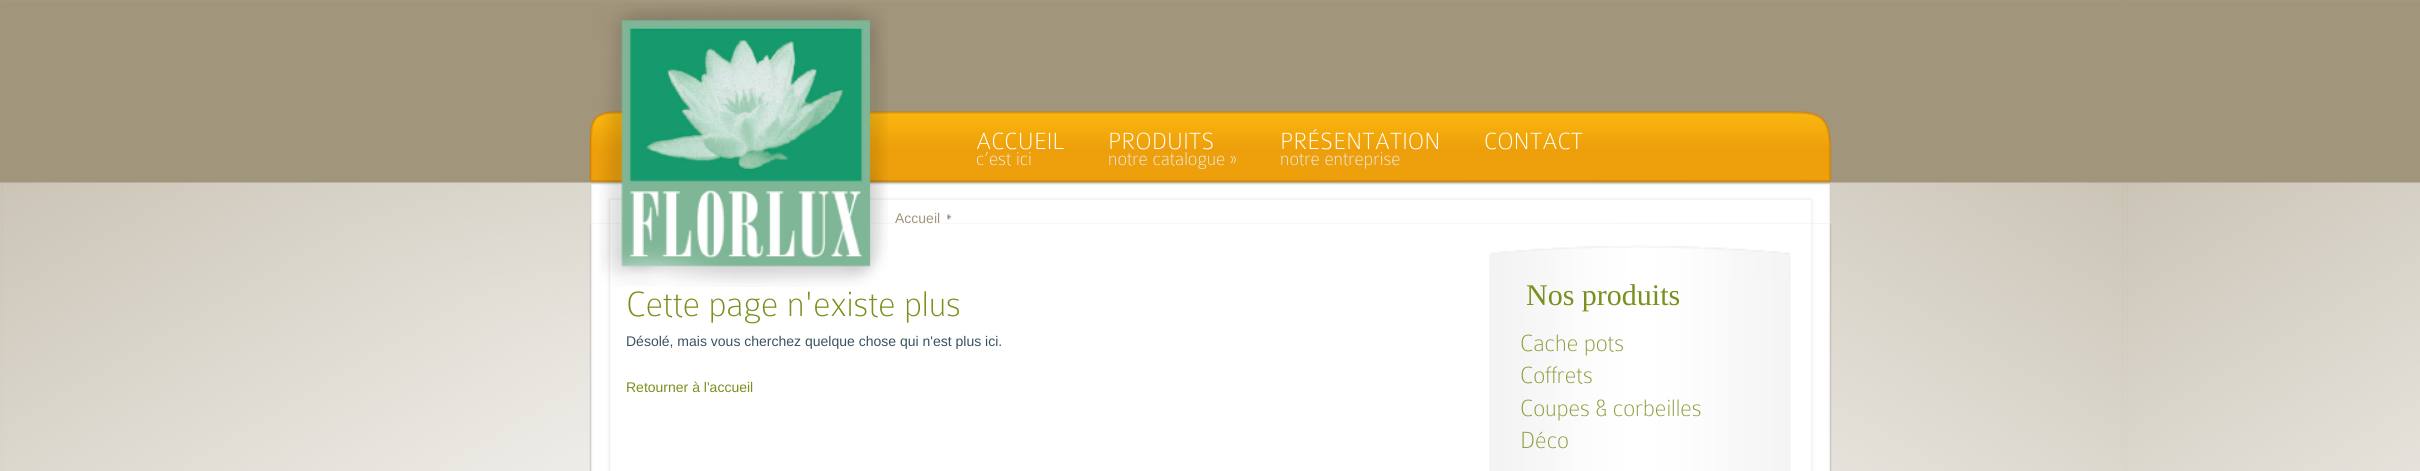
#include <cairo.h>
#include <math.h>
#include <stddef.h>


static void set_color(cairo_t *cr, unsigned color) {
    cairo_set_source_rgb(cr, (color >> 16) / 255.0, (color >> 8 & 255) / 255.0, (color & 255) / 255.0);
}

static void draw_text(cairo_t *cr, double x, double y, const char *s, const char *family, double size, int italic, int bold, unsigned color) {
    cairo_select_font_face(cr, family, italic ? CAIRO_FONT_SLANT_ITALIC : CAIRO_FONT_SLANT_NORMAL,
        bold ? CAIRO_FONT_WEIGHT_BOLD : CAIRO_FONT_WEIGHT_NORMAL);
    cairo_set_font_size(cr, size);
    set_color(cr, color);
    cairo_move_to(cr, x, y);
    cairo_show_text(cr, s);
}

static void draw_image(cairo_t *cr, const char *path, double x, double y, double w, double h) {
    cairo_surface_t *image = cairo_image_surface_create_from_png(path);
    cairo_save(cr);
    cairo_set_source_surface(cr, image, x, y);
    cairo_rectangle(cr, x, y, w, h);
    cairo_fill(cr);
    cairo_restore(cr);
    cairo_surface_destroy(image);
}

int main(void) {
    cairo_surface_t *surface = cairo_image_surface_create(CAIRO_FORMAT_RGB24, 2420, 471);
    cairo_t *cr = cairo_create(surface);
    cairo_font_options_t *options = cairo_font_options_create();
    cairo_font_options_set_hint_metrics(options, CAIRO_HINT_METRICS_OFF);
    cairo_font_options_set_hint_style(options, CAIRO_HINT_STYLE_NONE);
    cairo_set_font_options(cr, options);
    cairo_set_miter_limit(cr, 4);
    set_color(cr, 0xFFFFFF);
    cairo_paint(cr);
    draw_image(cr, "assets/img1.png", 0, 0, 2420, 471);
    draw_image(cr, "assets/img3.png", 589, 111, 1243, 72);
    draw_image(cr, "assets/img6.png", 589, 223, 1243, 248);
    draw_image(cr, "assets/img4.png", 590, 183, 1241, 41);
    draw_image(cr, "assets/img2.png", 599, 3, 289, 284);
    draw_text(cr, 976, 149, "ACCUEIL", "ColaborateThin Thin", 25, 0, 0, 0xFFFFFF);
    draw_text(cr, 976, 165, "c’est ici", "ColaborateThin Thin", 20, 0, 0, 0xEDEDED);
    draw_text(cr, 1108, 149, "PRODUITS", "ColaborateThin Thin", 25, 0, 0, 0xFFFFFF);
    draw_text(cr, 1108, 165, "notre catalogue »", "ColaborateThin Thin", 20, 0, 0, 0xEDEDED);
    draw_text(cr, 1280, 149, "PRÉSENTATION", "ColaborateThin Thin", 25, 0, 0, 0xFFFFFF);
    draw_text(cr, 1280, 165, "notre entreprise", "ColaborateThin Thin", 20, 0, 0, 0xEDEDED);
    draw_text(cr, 1484, 149, "CONTACT", "ColaborateThin Thin", 25, 0, 0, 0xFFFFFF);
    draw_text(cr, 895, 223, "Accueil", "Liberation Sans", 14, 0, 0, 0xA1957B);
    draw_image(cr, "assets/img5.png", 947, 213, 5, 7);
    draw_text(cr, 626, 316, "Cette page n'existe plus", "ColaborateThin Thin", 37.5, 0, 0, 0x77911C);
    draw_text(cr, 626, 346, "Désolé, mais vous cherchez quelque chose qui n'est plus ici.", "Liberation Sans", 14, 0, 0, 0x375362);
    draw_text(cr, 626, 392, "Retourner à l'accueil", "Liberation Sans", 14, 0, 0, 0x77911C);
    draw_image(cr, "assets/img7.png", 1489, 245, 302, 33);
    draw_image(cr, "assets/img8.png", 1489, 276, 302, 195);
    draw_text(cr, 1526, 305, "Nos produits", "Liberation Serif", 30, 0, 0, 0x77911C);
    draw_text(cr, 1520, 351, "Cache pots", "ColaborateThin Thin", 25, 0, 0, 0x889E39);
    draw_text(cr, 1520, 383, "Coffrets", "ColaborateThin Thin", 25, 0, 0, 0x889E39);
    draw_text(cr, 1520, 416, "Coupes & corbeilles", "ColaborateThin Thin", 25, 0, 0, 0x889E39);
    draw_text(cr, 1520, 448, "Déco", "ColaborateThin Thin", 25, 0, 0, 0x889E39);
    cairo_surface_write_to_png(surface, "output.png");
    cairo_font_options_destroy(options);
    cairo_destroy(cr);
    cairo_surface_destroy(surface);
    return 0;
}
